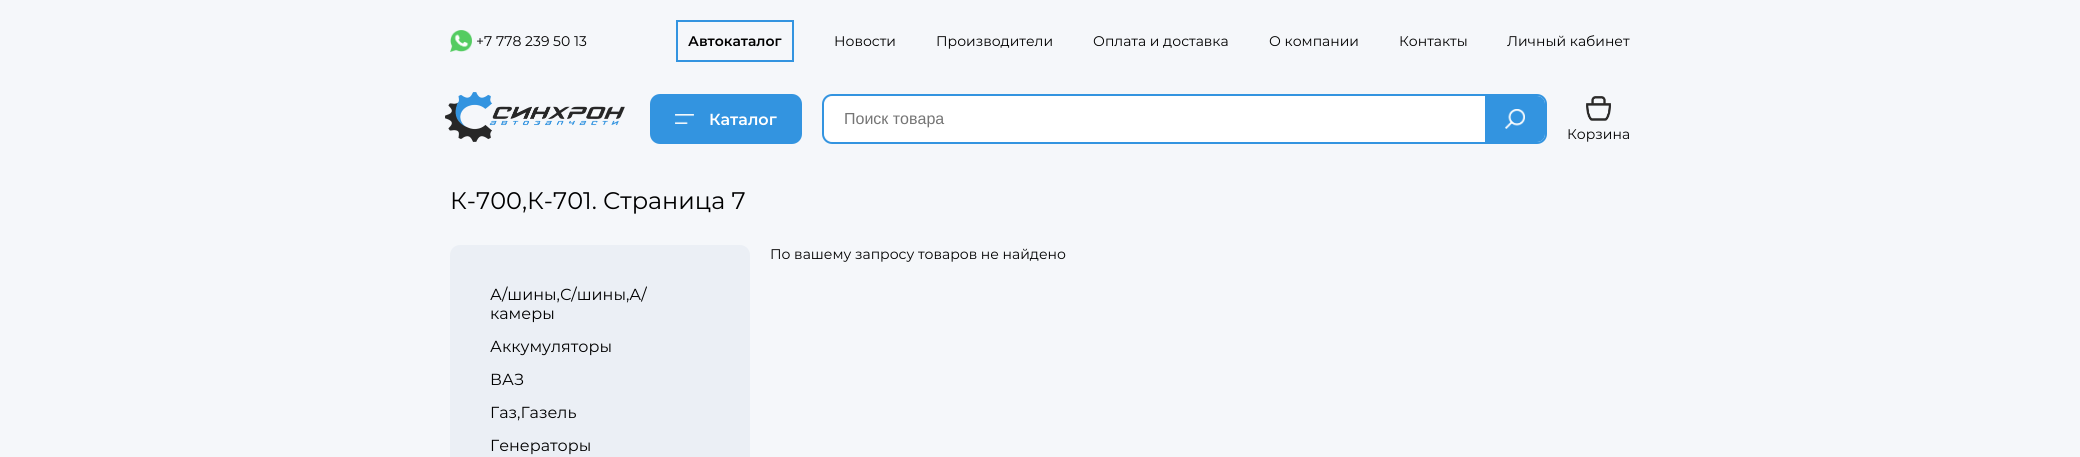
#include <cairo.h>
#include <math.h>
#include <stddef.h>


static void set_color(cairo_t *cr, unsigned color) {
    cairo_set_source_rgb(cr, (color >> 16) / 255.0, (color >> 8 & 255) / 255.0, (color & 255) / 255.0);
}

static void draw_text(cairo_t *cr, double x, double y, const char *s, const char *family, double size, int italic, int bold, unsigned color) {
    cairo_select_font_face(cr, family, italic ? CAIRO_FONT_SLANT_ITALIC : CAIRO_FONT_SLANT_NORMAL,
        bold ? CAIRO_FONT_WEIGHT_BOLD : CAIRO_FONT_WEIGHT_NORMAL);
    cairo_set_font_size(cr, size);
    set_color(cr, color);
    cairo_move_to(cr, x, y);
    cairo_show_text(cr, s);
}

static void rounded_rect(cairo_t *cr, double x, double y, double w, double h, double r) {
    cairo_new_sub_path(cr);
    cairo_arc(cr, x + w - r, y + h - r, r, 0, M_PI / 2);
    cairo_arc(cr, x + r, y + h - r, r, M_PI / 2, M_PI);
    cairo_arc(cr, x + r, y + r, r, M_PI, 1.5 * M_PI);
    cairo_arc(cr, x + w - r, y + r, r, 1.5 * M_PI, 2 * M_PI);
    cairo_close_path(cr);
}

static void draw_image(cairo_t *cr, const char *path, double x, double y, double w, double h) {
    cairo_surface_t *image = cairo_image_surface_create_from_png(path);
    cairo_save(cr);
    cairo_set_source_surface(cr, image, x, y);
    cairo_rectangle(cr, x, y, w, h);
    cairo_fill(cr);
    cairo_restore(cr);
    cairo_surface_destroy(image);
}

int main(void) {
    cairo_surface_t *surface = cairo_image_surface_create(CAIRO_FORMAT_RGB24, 2080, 457);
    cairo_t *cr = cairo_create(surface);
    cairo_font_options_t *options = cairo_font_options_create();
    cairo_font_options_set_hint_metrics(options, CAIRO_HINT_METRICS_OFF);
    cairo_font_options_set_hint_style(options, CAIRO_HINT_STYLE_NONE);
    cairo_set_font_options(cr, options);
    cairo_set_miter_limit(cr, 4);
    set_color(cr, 0xF5F7FA);
    cairo_paint(cr);
    draw_image(cr, "assets/img1.png", 450, 30, 22, 22);
    draw_text(cr, 476, 46, "+7 778 239 50 13", "Montserrat", 14, 0, 0, 0x000000);
    cairo_rectangle(cr, 677, 21, 116, 40);
    set_color(cr, 0x3394E0);
    cairo_stroke(cr);
    draw_text(cr, 688, 46, "Автокаталог", "Montserrat SemiBold", 14, 0, 0, 0x000000);
    draw_text(cr, 834, 46, "Новости", "Montserrat", 14, 0, 0, 0x000000);
    draw_text(cr, 936, 46, "Производители", "Montserrat", 14, 0, 0, 0x000000);
    draw_text(cr, 1093, 46, "Оплата и доставка", "Montserrat", 14, 0, 0, 0x000000);
    draw_text(cr, 1269, 46, "О компании", "Montserrat", 14, 0, 0, 0x000000);
    draw_text(cr, 1399, 46, "Контакты", "Montserrat", 14, 0, 0, 0x000000);
    draw_text(cr, 1507, 46, "Личный кабинет", "Montserrat", 14, 0, 0, 0x000000);
    draw_image(cr, "assets/img2.png", 445, 92, 180, 50);
    set_color(cr, 0x3394E0);
    rounded_rect(cr, 650, 94, 152, 50, 10);
    cairo_fill(cr);
    draw_image(cr, "assets/img3.png", 675, 114, 19, 10);
    draw_text(cr, 709, 125, "Каталог", "Montserrat SemiBold", 16, 0, 0, 0xFFFFFF);
    rounded_rect(cr, 823, 95, 723, 48, 9);
    set_color(cr, 0x3394E0);
    cairo_stroke(cr);
    set_color(cr, 0xFFFFFF);
    cairo_new_path(cr);
    cairo_move_to(cr, 834, 96);
    cairo_line_to(cr, 1485, 96);
    cairo_line_to(cr, 1485, 142);
    cairo_line_to(cr, 834, 142);
    cairo_curve_to(cr, 828.5, 142, 824, 137.5, 824, 132);
    cairo_line_to(cr, 824, 106);
    cairo_curve_to(cr, 824, 100.5, 828.5, 96, 834, 96);
    cairo_close_path(cr);
    cairo_fill(cr);
    draw_text(cr, 844, 124, "Поиск товара", "Liberation Sans", 16, 0, 0, 0x757575);
    set_color(cr, 0x3394E0);
    cairo_new_path(cr);
    cairo_move_to(cr, 1485, 96);
    cairo_line_to(cr, 1537, 96);
    cairo_curve_to(cr, 1541.5, 96, 1545, 99.5, 1545, 104);
    cairo_line_to(cr, 1545, 134);
    cairo_curve_to(cr, 1545, 138.5, 1541.5, 142, 1537, 142);
    cairo_line_to(cr, 1485, 142);
    cairo_close_path(cr);
    cairo_fill(cr);
    draw_image(cr, "assets/img4.png", 1505, 109, 20, 20);
    draw_image(cr, "assets/img5.png", 1586, 96, 25, 25);
    draw_text(cr, 1567, 139, "Корзина", "Montserrat", 14, 0, 0, 0x000000);
    draw_text(cr, 450, 209, "К-700,К-701. Страница 7", "Montserrat", 24, 0, 0, 0x000000);
    draw_text(cr, 770, 259, "По вашему запросу товаров не найдено", "Montserrat", 14, 0, 0, 0x000000);
    set_color(cr, 0xEBEFF5);
    rounded_rect(cr, 450, 245, 300, 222, 10);
    cairo_fill(cr);
    draw_text(cr, 490, 300, "А/шины,С/шины,А/", "Montserrat", 16, 0, 0, 0x000000);
    draw_text(cr, 490, 319, "камеры", "Montserrat", 16, 0, 0, 0x000000);
    draw_text(cr, 490, 352, "Аккумуляторы", "Montserrat", 16, 0, 0, 0x000000);
    draw_text(cr, 490, 385, "ВАЗ", "Montserrat", 16, 0, 0, 0x000000);
    draw_text(cr, 490, 418, "Газ,Газель", "Montserrat", 16, 0, 0, 0x000000);
    draw_text(cr, 490, 451, "Генераторы", "Montserrat", 16, 0, 0, 0x000000);
    cairo_surface_write_to_png(surface, "output.png");
    cairo_font_options_destroy(options);
    cairo_destroy(cr);
    cairo_surface_destroy(surface);
    return 0;
}
